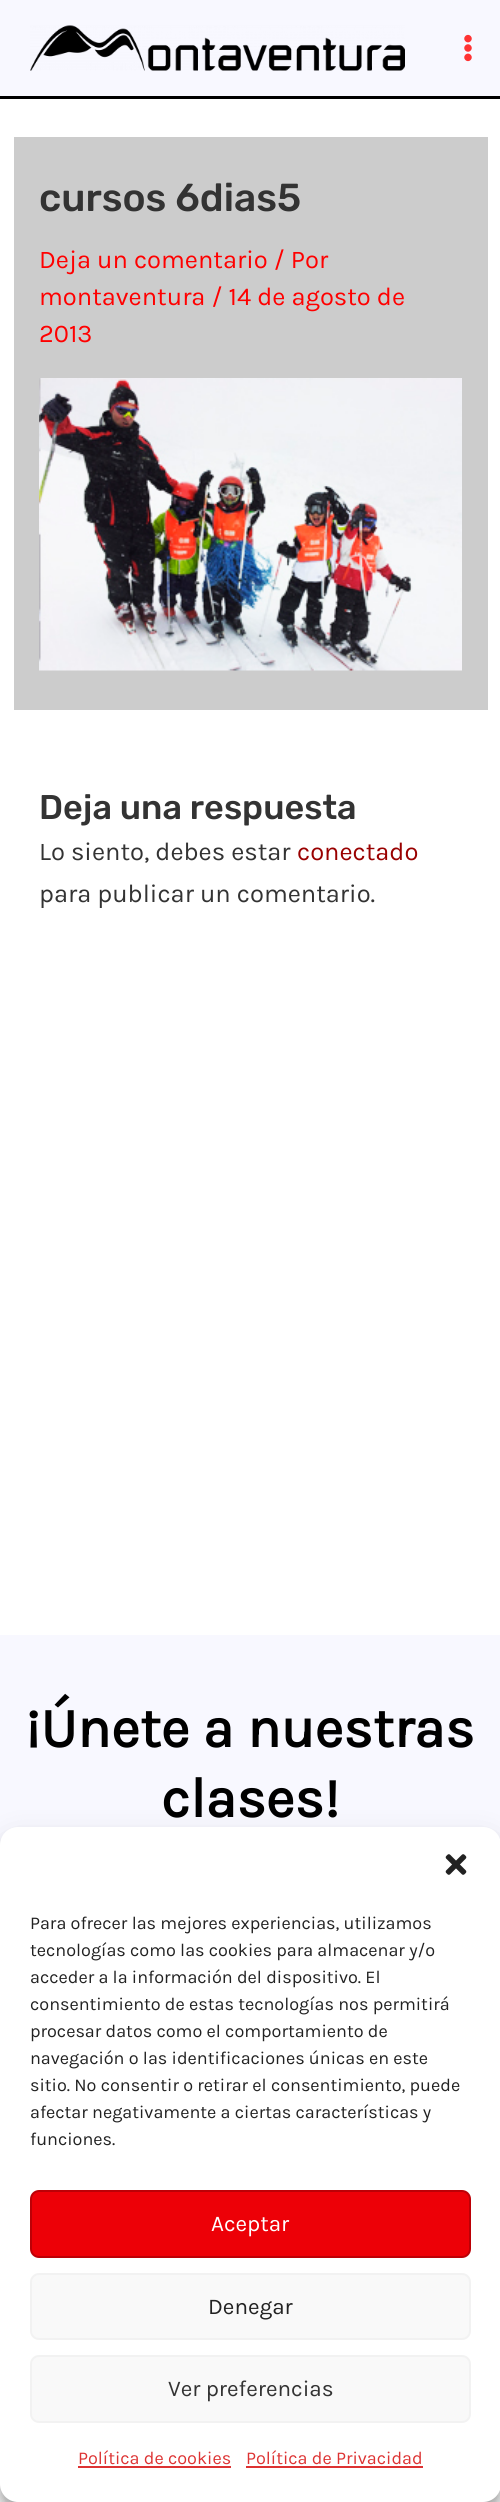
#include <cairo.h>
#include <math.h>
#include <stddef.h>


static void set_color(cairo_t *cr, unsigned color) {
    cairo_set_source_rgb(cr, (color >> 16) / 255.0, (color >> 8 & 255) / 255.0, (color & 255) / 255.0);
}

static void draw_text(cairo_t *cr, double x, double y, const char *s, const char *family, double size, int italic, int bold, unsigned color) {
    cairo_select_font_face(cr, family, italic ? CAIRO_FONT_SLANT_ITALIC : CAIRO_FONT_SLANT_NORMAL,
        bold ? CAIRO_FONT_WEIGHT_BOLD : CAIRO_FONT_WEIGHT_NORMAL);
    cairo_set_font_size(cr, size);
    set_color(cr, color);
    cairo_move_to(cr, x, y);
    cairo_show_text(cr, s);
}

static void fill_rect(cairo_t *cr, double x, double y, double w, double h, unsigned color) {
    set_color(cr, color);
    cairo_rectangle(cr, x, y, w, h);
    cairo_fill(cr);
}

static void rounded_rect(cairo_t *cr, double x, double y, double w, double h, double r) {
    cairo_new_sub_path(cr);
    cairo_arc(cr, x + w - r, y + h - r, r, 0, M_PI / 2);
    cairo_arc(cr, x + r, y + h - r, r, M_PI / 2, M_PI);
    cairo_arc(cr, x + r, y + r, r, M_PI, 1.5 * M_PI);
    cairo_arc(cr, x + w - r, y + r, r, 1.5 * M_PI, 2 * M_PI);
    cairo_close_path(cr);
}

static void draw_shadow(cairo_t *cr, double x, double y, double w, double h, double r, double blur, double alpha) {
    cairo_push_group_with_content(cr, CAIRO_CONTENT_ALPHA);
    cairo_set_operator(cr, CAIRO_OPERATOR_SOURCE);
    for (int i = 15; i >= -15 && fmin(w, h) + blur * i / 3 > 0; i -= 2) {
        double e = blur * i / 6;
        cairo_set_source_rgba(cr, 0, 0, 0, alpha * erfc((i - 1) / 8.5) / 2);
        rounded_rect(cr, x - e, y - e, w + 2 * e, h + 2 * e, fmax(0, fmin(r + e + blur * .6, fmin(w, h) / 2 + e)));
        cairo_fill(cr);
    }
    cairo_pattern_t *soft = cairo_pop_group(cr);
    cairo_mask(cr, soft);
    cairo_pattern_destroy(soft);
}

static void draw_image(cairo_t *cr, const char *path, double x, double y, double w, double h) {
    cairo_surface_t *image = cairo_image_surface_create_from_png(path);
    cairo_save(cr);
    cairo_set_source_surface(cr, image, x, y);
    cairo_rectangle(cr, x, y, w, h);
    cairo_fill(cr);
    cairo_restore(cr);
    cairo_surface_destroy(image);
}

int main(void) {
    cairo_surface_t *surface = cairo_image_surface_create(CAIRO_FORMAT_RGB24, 500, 2502);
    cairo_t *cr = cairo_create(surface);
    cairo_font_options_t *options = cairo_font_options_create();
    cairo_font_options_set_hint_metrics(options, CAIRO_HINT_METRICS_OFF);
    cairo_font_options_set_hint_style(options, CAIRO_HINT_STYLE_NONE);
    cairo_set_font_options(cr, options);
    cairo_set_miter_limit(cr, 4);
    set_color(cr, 0xFFFFFF);
    cairo_paint(cr);
    fill_rect(cr, 0, 0, 500, 96, 0xF8F8FF);
    fill_rect(cr, 0, 96, 500, 3, 0x000000);
    draw_image(cr, "assets/img1.png", 30, 25, 375, 46);
    draw_image(cr, "assets/img2.png", 464, 34, 8, 28);
    fill_rect(cr, 14, 137, 474, 573, 0xCCCCCC);
    draw_text(cr, 39, 211, "cursos 6dias5", "Rubik Medium", 39, 0, 0, 0x333333);
    draw_text(cr, 39, 268, "Deja un comentario / Por", "Karla", 25.5, 0, 0, 0xFF0000);
    draw_text(cr, 39, 305, "montaventura / 14 de agosto de", "Karla", 25.5, 0, 0, 0xFF0000);
    draw_text(cr, 39, 342, "2013", "Karla", 25.5, 0, 0, 0xFF0000);
    draw_image(cr, "assets/img3.png", 39, 378, 423, 293);
    draw_text(cr, 39, 819, "Deja una respuesta", "Rubik Medium", 34.25, 0, 0, 0x333333);
    draw_text(cr, 39, 860, "Lo siento, debes estar", "Karla", 25.5, 0, 0, 0x333333);
    draw_text(cr, 297, 860, "conectado", "Karla", 25.5, 0, 0, 0x990000);
    draw_text(cr, 39, 902, "para publicar un comentario.", "Karla", 25.5, 0, 0, 0x333333);
    fill_rect(cr, 0, 1635, 500, 210, 0xF8F8FF);
    draw_text(cr, 25, 1747, "¡Únete a nuestras", "Karla", 56, 0, 1, 0x000000);
    draw_text(cr, 161, 1817, "clases!", "Karla", 56, 0, 1, 0x000000);
    set_color(cr, 0x000000);
    draw_shadow(cr, 0, 1836, 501, 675, 18, 4.5, 0.23);
    draw_shadow(cr, 0, 1842, 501, 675, 18, 15, 0.19);
    set_color(cr, 0xFFFFFF);
    rounded_rect(cr, 0, 1827, 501, 675, 18);
    cairo_fill(cr);
    draw_image(cr, "assets/img4.png", 445, 1854, 22, 21);
    draw_text(cr, 30, 1929, "Para ofrecer las mejores experiencias, utilizamos", "Karla", 18, 0, 0, 0x222222);
    draw_text(cr, 30, 1956, "tecnologías como las cookies para almacenar y/o", "Karla", 18, 0, 0, 0x222222);
    draw_text(cr, 30, 1983, "acceder a la información del dispositivo. El", "Karla", 18, 0, 0, 0x222222);
    draw_text(cr, 30, 2010, "consentimiento de estas tecnologías nos permitirá", "Karla", 18, 0, 0, 0x222222);
    draw_text(cr, 30, 2037, "procesar datos como el comportamiento de", "Karla", 18, 0, 0, 0x222222);
    draw_text(cr, 30, 2064, "navegación o las identificaciones únicas en este", "Karla", 18, 0, 0, 0x222222);
    draw_text(cr, 30, 2091, "sitio. No consentir o retirar el consentimiento, puede", "Karla", 18, 0, 0, 0x222222);
    draw_text(cr, 30, 2118, "afectar negativamente a ciertas características y", "Karla", 18, 0, 0, 0x222222);
    draw_text(cr, 30, 2145, "funciones.", "Karla", 18, 0, 0, 0x222222);
    set_color(cr, 0xED0007);
    rounded_rect(cr, 31, 2191, 439, 66, 8);
    cairo_fill_preserve(cr);
    set_color(cr, 0xBC0006);
    cairo_stroke(cr);
    draw_text(cr, 211, 2231, "Aceptar", "Karla", 22.5, 0, 0, 0xFFFFFF);
    set_color(cr, 0xF9F9F9);
    rounded_rect(cr, 31, 2274, 439, 65, 8);
    cairo_fill_preserve(cr);
    set_color(cr, 0xF2F2F2);
    cairo_stroke(cr);
    draw_text(cr, 208, 2314, "Denegar", "Karla", 22.5, 0, 0, 0x222222);
    set_color(cr, 0xF9F9F9);
    rounded_rect(cr, 31, 2356, 439, 66, 8);
    cairo_fill_preserve(cr);
    set_color(cr, 0xF2F2F2);
    cairo_stroke(cr);
    draw_text(cr, 168, 2396, "Ver preferencias", "Karla", 22.5, 0, 0, 0x333333);
    draw_text(cr, 78, 2464, "Política de cookies", "Karla", 18, 0, 0, 0xDD3333);
    fill_rect(cr, 78, 2466, 153, 2, 0xDD3333);
    draw_text(cr, 246, 2464, "Política de Privacidad", "Karla", 18, 0, 0, 0xDD3333);
    fill_rect(cr, 246, 2466, 177, 2, 0xDD3333);
    cairo_surface_write_to_png(surface, "output.png");
    cairo_font_options_destroy(options);
    cairo_destroy(cr);
    cairo_surface_destroy(surface);
    return 0;
}
